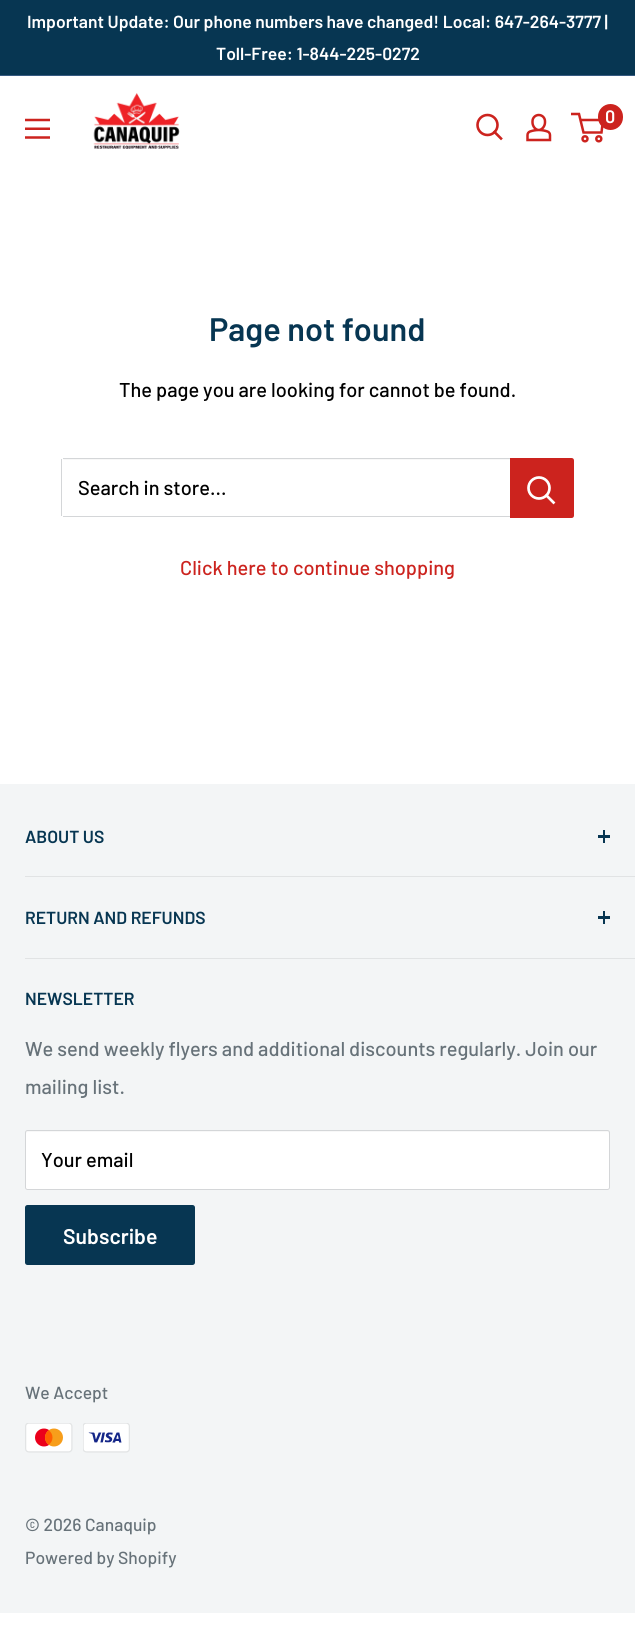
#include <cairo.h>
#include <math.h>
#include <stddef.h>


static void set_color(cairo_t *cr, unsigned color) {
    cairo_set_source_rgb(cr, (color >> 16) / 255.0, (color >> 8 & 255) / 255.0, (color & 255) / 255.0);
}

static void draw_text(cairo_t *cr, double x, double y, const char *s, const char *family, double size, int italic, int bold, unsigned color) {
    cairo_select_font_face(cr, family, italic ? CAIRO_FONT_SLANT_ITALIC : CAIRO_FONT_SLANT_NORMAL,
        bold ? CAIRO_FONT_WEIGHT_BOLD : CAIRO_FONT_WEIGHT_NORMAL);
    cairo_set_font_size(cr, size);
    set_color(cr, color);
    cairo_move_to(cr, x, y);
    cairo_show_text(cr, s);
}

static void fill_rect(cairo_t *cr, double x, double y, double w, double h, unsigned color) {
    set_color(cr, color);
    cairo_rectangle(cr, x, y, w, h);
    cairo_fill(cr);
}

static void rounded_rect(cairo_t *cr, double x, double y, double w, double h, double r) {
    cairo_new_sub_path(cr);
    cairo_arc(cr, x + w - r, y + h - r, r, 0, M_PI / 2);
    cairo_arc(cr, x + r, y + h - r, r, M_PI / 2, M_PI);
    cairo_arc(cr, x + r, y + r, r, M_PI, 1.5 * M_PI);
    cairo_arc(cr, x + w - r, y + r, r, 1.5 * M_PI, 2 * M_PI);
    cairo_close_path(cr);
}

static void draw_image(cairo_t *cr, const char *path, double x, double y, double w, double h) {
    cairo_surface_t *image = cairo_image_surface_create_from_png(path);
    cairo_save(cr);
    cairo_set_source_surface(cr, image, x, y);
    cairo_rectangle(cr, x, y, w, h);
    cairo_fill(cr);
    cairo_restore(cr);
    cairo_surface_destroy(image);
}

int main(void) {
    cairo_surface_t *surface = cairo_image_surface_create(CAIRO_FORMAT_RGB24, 635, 1634);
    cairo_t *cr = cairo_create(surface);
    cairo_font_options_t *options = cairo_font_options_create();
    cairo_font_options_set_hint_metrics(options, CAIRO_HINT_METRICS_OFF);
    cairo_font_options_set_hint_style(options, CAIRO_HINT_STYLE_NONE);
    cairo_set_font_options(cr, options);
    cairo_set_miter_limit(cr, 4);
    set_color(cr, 0xFFFFFF);
    cairo_paint(cr);
    fill_rect(cr, 0, 0, 635, 75, 0x073652);
    fill_rect(cr, 0, 75, 635, 1, 0x365A81);
    draw_text(cr, 27, 28, "Important Update: Our phone numbers have changed! Local: 647-264-3777 |", "Barlow SemiBold", 17.5, 0, 0, 0xFFFFFF);
    draw_text(cr, 216, 60, "Toll-Free: 1-844-225-0272", "Barlow SemiBold", 17.5, 0, 0, 0xFFFFFF);
    draw_image(cr, "assets/img1.png", 25, 118, 25, 21);
    draw_image(cr, "assets/img2.png", 93, 93, 87, 56);
    cairo_new_path(cr);
    cairo_move_to(cr, 501, 138.5);
    cairo_line_to(cr, 494.5, 132);
    set_color(cr, 0xCC231E);
    cairo_set_line_width(cr, 2.6);
    cairo_set_line_cap(cr, CAIRO_LINE_CAP_SQUARE);
    cairo_stroke(cr);
    cairo_arc(cr, 487.5, 125, 10, 0, 2 * M_PI);
    cairo_set_line_cap(cr, CAIRO_LINE_CAP_BUTT);
    cairo_stroke(cr);
    draw_image(cr, "assets/img3.png", 526, 113, 26, 29);
    cairo_arc(cr, 585, 138.8, 2.5, 0, 2 * M_PI);
    cairo_set_line_width(cr, 2.5);
    cairo_stroke(cr);
    cairo_arc(cr, 598.8, 138.8, 2.5, 0, 2 * M_PI);
    cairo_stroke(cr);
    cairo_new_path(cr);
    cairo_move_to(cr, 580.5, 120);
    cairo_line_to(cr, 603, 120);
    cairo_line_to(cr, 601.5, 132.5);
    cairo_line_to(cr, 583.5, 132.5);
    cairo_line_to(cr, 579, 114);
    cairo_line_to(cr, 571, 114);
    cairo_stroke(cr);
    rounded_rect(cr, 598, 104, 25, 26, 12.5);
    cairo_fill(cr);
    draw_text(cr, 605, 123, "0", "Barlow SemiBold", 18, 0, 0, 0xFFFFFF);
    draw_text(cr, 209, 341, "Page not found", "Barlow SemiBold", 32.5, 0, 0, 0x073652);
    draw_text(cr, 119, 397, "The page you are looking for cannot be found.", "Barlow Medium", 20, 0, 0, 0x000000);
    set_color(cr, 0xF8F8F8);
    cairo_new_path(cr);
    cairo_move_to(cr, 64, 460);
    cairo_line_to(cr, 510, 460);
    cairo_line_to(cr, 510, 459);
    cairo_line_to(cr, 64, 459);
    cairo_line_to(cr, 63, 460);
    cairo_close_path(cr);
    cairo_fill(cr);
    fill_rect(cr, 63, 458, 447, 1, 0xD4D6D8);
    fill_rect(cr, 63, 516, 447, 1, 0xD4D6D8);
    fill_rect(cr, 61, 459, 1, 57, 0xD4D6D8);
    draw_text(cr, 78, 495, "Search in store...", "Barlow Medium", 20, 0, 0, 0x000000);
    set_color(cr, 0xCC231E);
    cairo_new_path(cr);
    cairo_move_to(cr, 510, 458);
    cairo_line_to(cr, 571.5, 458);
    cairo_curve_to(cr, 573, 458, 574, 459, 574, 460.5);
    cairo_line_to(cr, 574, 515.5);
    cairo_curve_to(cr, 574, 517, 573, 518, 571.5, 518);
    cairo_line_to(cr, 510, 518);
    cairo_close_path(cr);
    cairo_fill(cr);
    cairo_new_path(cr);
    cairo_move_to(cr, 553.5, 502.5);
    cairo_line_to(cr, 546.5, 495.5);
    set_color(cr, 0xFFFFFF);
    cairo_set_line_width(cr, 2.7);
    cairo_set_line_cap(cr, CAIRO_LINE_CAP_SQUARE);
    cairo_stroke(cr);
    cairo_arc(cr, 539, 488, 10.5, 0, 2 * M_PI);
    cairo_set_line_cap(cr, CAIRO_LINE_CAP_BUTT);
    cairo_stroke(cr);
    draw_text(cr, 180, 575, "Click here to continue shopping", "Barlow Medium", 20, 0, 0, 0xCC231E);
    fill_rect(cr, 0, 784, 635, 829, 0xF3F5F6);
    fill_rect(cr, 25, 876, 610, 1, 0xE1E3E4);
    draw_text(cr, 25, 843, "ABOUT US", "Barlow SemiBold", 17.5, 0, 0, 0x073652);
    fill_rect(cr, 603, 830, 2, 13, 0x073652);
    fill_rect(cr, 598, 835, 12, 3, 0x073652);
    fill_rect(cr, 25, 958, 610, 1, 0xE1E3E4);
    draw_text(cr, 25, 924, "RETURN AND REFUNDS", "Barlow SemiBold", 17.5, 0, 0, 0x073652);
    fill_rect(cr, 603, 911, 2, 13, 0x073652);
    fill_rect(cr, 598, 916, 12, 3, 0x073652);
    draw_text(cr, 25, 1005, "NEWSLETTER", "Barlow SemiBold", 17.5, 0, 0, 0x073652);
    draw_text(cr, 25, 1056, "We send weekly flyers and additional discounts regularly. Join our", "Barlow Medium", 20, 0, 0, 0x677279);
    draw_text(cr, 25, 1094, "mailing list.", "Barlow Medium", 20, 0, 0, 0x677279);
    set_color(cr, 0xFFFFFF);
    rounded_rect(cr, 25, 1130, 585, 60, 2.5);
    cairo_fill(cr);
    set_color(cr, 0xF8F8F8);
    cairo_new_path(cr);
    cairo_move_to(cr, 28, 1132);
    cairo_line_to(cr, 608, 1132);
    cairo_line_to(cr, 609, 1134);
    cairo_line_to(cr, 609, 1132);
    cairo_curve_to(cr, 609, 1131, 609, 1131, 608, 1131);
    cairo_line_to(cr, 27, 1131);
    cairo_curve_to(cr, 26, 1131, 26, 1131, 26, 1132);
    cairo_line_to(cr, 26, 1134);
    cairo_curve_to(cr, 26, 1133, 27, 1132, 28, 1132);
    cairo_close_path(cr);
    cairo_fill(cr);
    rounded_rect(cr, 25.5, 1130.5, 584, 59, 2);
    set_color(cr, 0xD4D6D8);
    cairo_set_line_width(cr, 1);
    cairo_stroke(cr);
    draw_text(cr, 41, 1167, "Your email", "Barlow Medium", 20, 0, 0, 0x000000);
    set_color(cr, 0x073652);
    rounded_rect(cr, 25, 1205, 170, 60, 2.5);
    cairo_fill(cr);
    draw_text(cr, 63, 1244, "Subscribe", "Barlow SemiBold", 21.25, 0, 0, 0xFFFFFF);
    draw_text(cr, 25, 1399, "We Accept", "Barlow Medium", 17.5, 0, 0, 0x677279);
    draw_image(cr, "assets/img4.png", 25, 1423, 48, 30);
    draw_image(cr, "assets/img5.png", 83, 1423, 47, 30);
    draw_text(cr, 25, 1531, "© 2026 Canaquip", "Barlow Medium", 17.5, 0, 0, 0x677279);
    draw_text(cr, 25, 1564, "Powered by Shopify", "Barlow Medium", 17.5, 0, 0, 0x677279);
    cairo_surface_write_to_png(surface, "output.png");
    cairo_font_options_destroy(options);
    cairo_destroy(cr);
    cairo_surface_destroy(surface);
    return 0;
}
